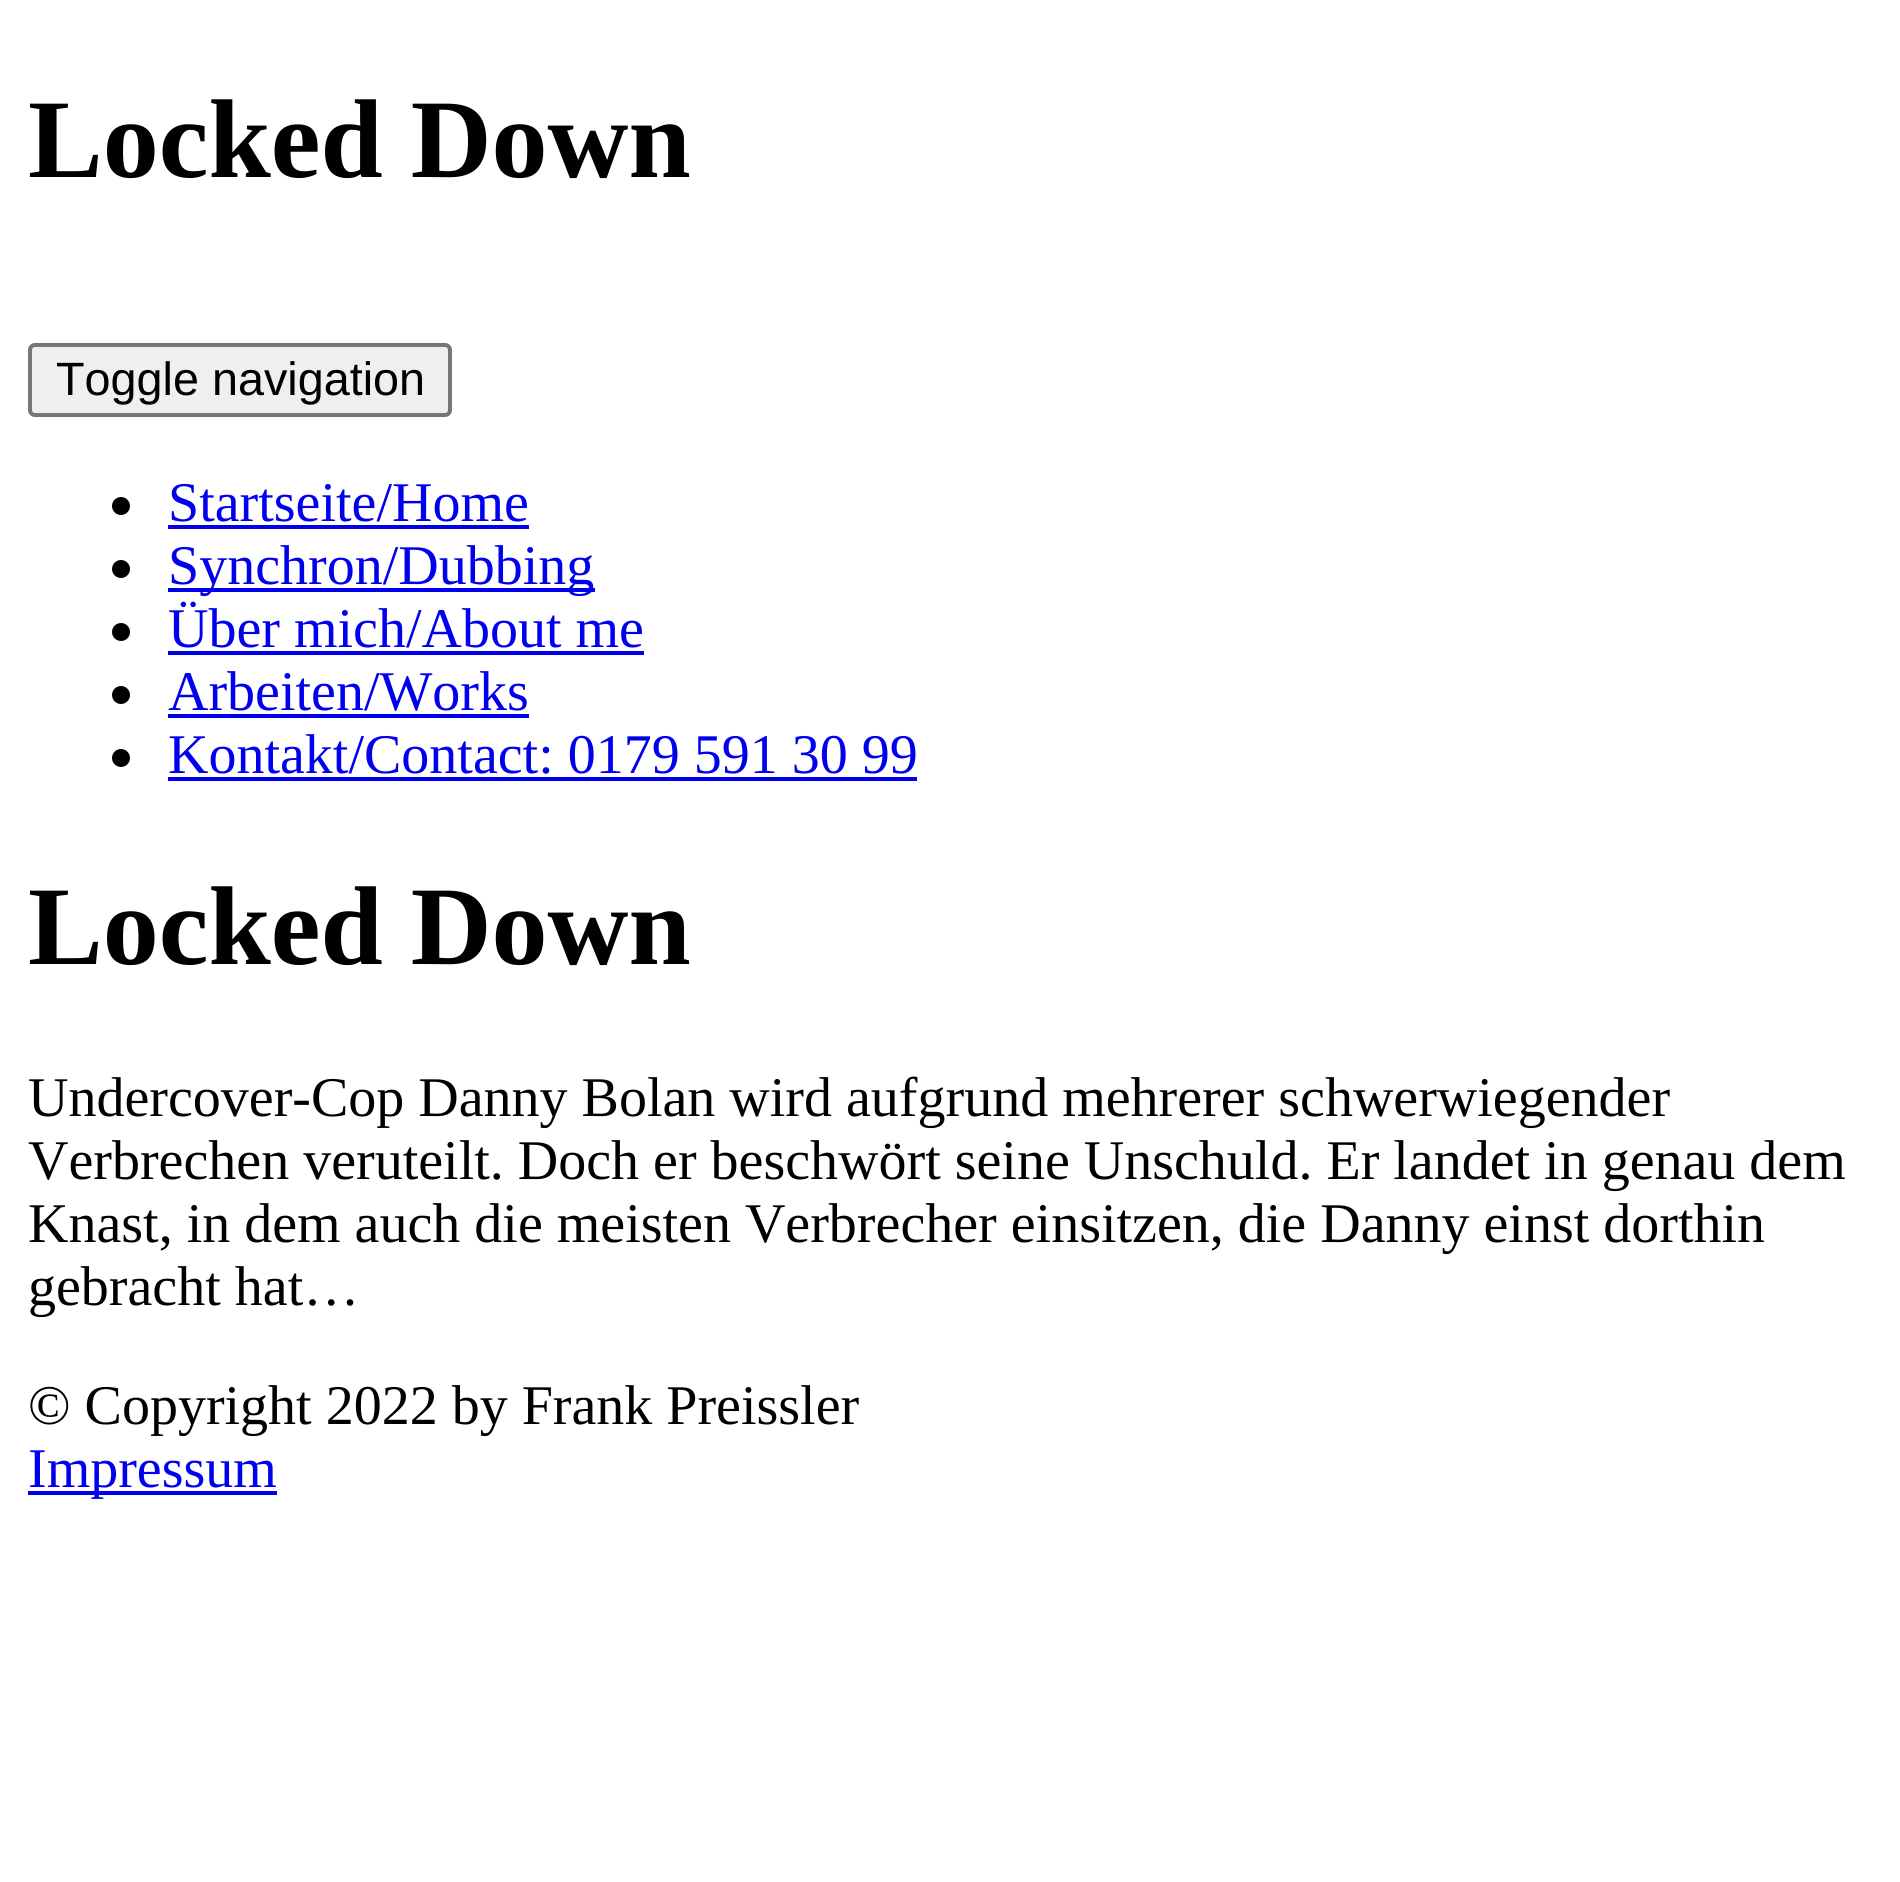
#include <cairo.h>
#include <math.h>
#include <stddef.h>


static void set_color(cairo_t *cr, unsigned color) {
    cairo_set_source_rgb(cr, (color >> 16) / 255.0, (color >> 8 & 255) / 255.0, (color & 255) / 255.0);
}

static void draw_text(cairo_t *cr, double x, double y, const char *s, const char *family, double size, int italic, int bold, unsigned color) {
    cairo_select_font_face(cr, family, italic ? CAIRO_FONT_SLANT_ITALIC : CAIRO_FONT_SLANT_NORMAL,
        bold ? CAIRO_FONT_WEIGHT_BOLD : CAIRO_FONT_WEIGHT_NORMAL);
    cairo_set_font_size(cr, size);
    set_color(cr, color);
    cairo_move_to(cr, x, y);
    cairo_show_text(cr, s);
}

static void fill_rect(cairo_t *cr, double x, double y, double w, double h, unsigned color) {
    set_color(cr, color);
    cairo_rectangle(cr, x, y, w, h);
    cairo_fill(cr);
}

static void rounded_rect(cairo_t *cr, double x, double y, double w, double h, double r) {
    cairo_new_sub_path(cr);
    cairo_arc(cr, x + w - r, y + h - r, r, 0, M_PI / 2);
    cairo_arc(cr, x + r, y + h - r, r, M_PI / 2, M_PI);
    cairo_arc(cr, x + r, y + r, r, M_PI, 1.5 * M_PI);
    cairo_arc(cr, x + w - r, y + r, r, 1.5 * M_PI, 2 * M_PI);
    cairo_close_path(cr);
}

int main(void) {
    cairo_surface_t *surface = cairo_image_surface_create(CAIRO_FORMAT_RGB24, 1900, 1882);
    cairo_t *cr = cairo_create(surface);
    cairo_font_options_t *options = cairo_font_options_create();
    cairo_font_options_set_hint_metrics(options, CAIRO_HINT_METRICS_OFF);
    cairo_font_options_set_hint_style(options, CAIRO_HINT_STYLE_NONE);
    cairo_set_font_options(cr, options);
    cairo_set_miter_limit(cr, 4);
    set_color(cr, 0xFFFFFF);
    cairo_paint(cr);
    draw_text(cr, 28, 177, "Locked Down", "Liberation Serif", 112, 0, 1, 0x000000);
    set_color(cr, 0xEFEFEF);
    rounded_rect(cr, 30, 345, 420, 70, 5);
    cairo_fill_preserve(cr);
    set_color(cr, 0x767676);
    cairo_set_line_width(cr, 4);
    cairo_stroke(cr);
    draw_text(cr, 56, 395, "Toggle navigation", "Liberation Sans", 46.75, 0, 0, 0x000000);
    cairo_new_path(cr);
    cairo_arc(cr, 121, 506, 9, 0, 2 * M_PI);
    cairo_fill(cr);
    draw_text(cr, 168, 521, "Startseite/Home", "Liberation Serif", 56, 0, 0, 0x0000EE);
    fill_rect(cr, 168, 525, 361, 4, 0x0000EE);
    set_color(cr, 0x000000);
    cairo_new_path(cr);
    cairo_arc(cr, 121, 569, 9, 0, 2 * M_PI);
    cairo_fill(cr);
    fill_rect(cr, 168, 588, 427, 4, 0x0000EE);
    draw_text(cr, 168, 584, "Synchron/Dubbing", "Liberation Serif", 56, 0, 0, 0x0000EE);
    set_color(cr, 0x000000);
    cairo_new_path(cr);
    cairo_arc(cr, 121, 632, 9, 0, 2 * M_PI);
    cairo_fill(cr);
    draw_text(cr, 168, 647, "Über mich/About me", "Liberation Serif", 56, 0, 0, 0x0000EE);
    fill_rect(cr, 168, 651, 476, 4, 0x0000EE);
    set_color(cr, 0x000000);
    cairo_new_path(cr);
    cairo_arc(cr, 121, 695, 9, 0, 2 * M_PI);
    cairo_fill(cr);
    draw_text(cr, 168, 710, "Arbeiten/Works", "Liberation Serif", 56, 0, 0, 0x0000EE);
    fill_rect(cr, 168, 714, 361, 4, 0x0000EE);
    set_color(cr, 0x000000);
    cairo_new_path(cr);
    cairo_arc(cr, 121, 758, 9, 0, 2 * M_PI);
    cairo_fill(cr);
    draw_text(cr, 168, 773, "Kontakt/Contact: 0179 591 30 99", "Liberation Serif", 56, 0, 0, 0x0000EE);
    fill_rect(cr, 168, 777, 749, 4, 0x0000EE);
    draw_text(cr, 28, 964, "Locked Down", "Liberation Serif", 112, 0, 1, 0x000000);
    draw_text(cr, 28, 1116, "Undercover-Cop Danny Bolan wird aufgrund mehrerer schwerwiegender", "Liberation Serif", 56, 0, 0, 0x000000);
    draw_text(cr, 28, 1179, "Verbrechen veruteilt. Doch er beschwört seine Unschuld. Er landet in genau dem", "Liberation Serif", 56, 0, 0, 0x000000);
    draw_text(cr, 28, 1242, "Knast, in dem auch die meisten Verbrecher einsitzen, die Danny einst dorthin", "Liberation Serif", 56, 0, 0, 0x000000);
    draw_text(cr, 28, 1305, "gebracht hat…", "Liberation Serif", 56, 0, 0, 0x000000);
    draw_text(cr, 28, 1424, "© Copyright 2022 by Frank Preissler", "Liberation Serif", 56, 0, 0, 0x000000);
    fill_rect(cr, 28, 1491, 249, 4, 0x0000EE);
    draw_text(cr, 28, 1487, "Impressum", "Liberation Serif", 56, 0, 0, 0x0000EE);
    cairo_surface_write_to_png(surface, "output.png");
    cairo_font_options_destroy(options);
    cairo_destroy(cr);
    cairo_surface_destroy(surface);
    return 0;
}
